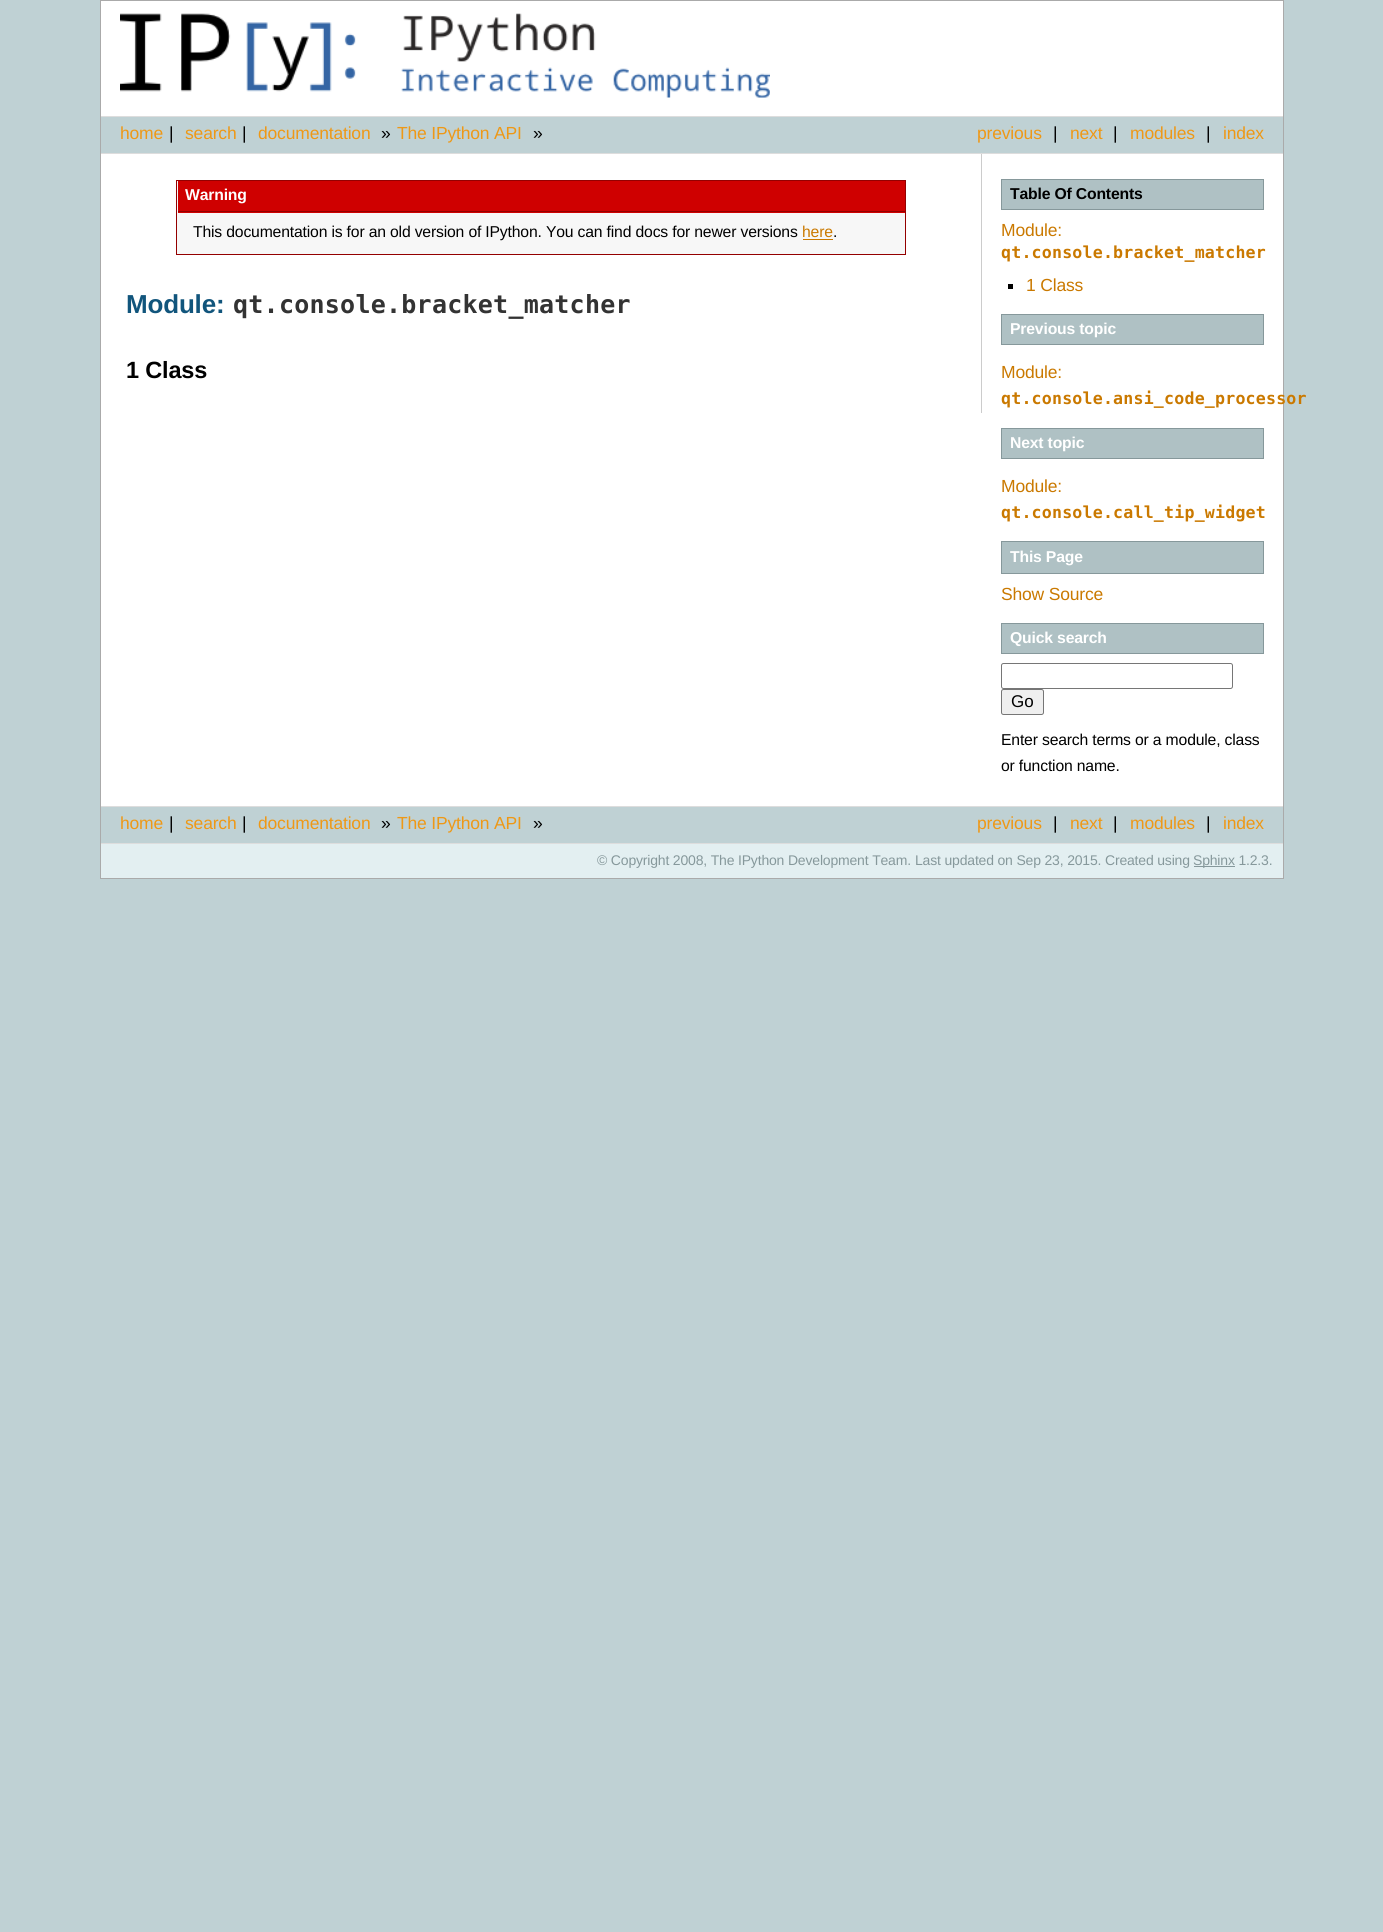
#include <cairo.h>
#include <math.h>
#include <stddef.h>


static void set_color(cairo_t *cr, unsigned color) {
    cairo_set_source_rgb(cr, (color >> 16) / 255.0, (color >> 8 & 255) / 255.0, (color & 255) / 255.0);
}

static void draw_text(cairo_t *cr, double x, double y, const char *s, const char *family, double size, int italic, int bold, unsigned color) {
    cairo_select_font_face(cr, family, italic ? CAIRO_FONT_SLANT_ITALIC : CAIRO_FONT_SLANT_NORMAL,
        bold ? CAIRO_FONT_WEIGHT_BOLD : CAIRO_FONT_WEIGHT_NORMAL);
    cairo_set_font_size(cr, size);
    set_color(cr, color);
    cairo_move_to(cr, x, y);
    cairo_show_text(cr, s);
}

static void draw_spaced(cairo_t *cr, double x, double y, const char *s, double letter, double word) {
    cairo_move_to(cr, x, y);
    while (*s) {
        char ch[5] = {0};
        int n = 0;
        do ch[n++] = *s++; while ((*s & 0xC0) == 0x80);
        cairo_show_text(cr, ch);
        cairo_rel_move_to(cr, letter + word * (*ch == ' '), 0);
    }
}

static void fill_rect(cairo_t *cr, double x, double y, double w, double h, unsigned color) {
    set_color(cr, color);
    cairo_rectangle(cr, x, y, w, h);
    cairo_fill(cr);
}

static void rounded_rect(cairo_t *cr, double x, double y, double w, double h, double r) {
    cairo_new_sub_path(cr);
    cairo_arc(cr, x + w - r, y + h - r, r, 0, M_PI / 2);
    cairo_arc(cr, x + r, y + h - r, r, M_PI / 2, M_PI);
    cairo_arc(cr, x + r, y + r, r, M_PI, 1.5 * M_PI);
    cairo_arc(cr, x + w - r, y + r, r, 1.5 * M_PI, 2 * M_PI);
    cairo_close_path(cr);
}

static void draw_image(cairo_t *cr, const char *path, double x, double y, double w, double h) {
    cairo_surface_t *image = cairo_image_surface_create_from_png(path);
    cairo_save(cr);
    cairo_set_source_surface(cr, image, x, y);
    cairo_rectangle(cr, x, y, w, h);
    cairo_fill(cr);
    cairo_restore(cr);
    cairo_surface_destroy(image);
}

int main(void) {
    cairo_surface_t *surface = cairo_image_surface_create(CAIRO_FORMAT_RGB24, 1383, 1932);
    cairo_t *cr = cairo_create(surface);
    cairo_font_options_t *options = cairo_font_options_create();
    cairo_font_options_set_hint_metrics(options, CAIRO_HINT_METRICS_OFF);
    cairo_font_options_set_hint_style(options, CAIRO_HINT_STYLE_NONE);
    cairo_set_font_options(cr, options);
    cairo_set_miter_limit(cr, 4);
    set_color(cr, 0xBFD1D4);
    cairo_paint(cr);
    cairo_rectangle(cr, 100.5, 0.5, 1183, 878);
    set_color(cr, 0xAAAAAA);
    cairo_set_line_width(cr, 1);
    cairo_stroke(cr);
    fill_rect(cr, 101, 1, 1182, 115, 0xFFFFFF);
    draw_image(cr, "assets/img1.png", 120, 13, 650, 85);
    fill_rect(cr, 101, 116, 1182, 1, 0xDDDDDD);
    fill_rect(cr, 101, 153, 1182, 1, 0xDDDDDD);
    cairo_select_font_face(cr, "Liberation Sans", CAIRO_FONT_SLANT_NORMAL, CAIRO_FONT_WEIGHT_NORMAL);
    cairo_set_font_size(cr, 17.5);
    set_color(cr, 0xEE9816);
    draw_spaced(cr, 120, 139, "home", -0.18, 0);
    set_color(cr, 0x000000);
    draw_spaced(cr, 169, 139, "|", -0.18, 0);
    set_color(cr, 0xEE9816);
    draw_spaced(cr, 185, 139, "search", -0.18, 0);
    set_color(cr, 0x000000);
    draw_spaced(cr, 242, 139, "|", -0.18, 0);
    set_color(cr, 0xEE9816);
    draw_spaced(cr, 258, 139, "documentation", -0.18, 0);
    set_color(cr, 0x000000);
    draw_spaced(cr, 381, 139, "»", -0.18, 0);
    set_color(cr, 0xEE9816);
    draw_spaced(cr, 397, 139, "The IPython API", -0.18, 0);
    set_color(cr, 0x000000);
    draw_spaced(cr, 533, 139, "»", -0.18, 0);
    set_color(cr, 0xEE9816);
    draw_spaced(cr, 977, 139, "previous", -0.18, 0);
    set_color(cr, 0x000000);
    draw_spaced(cr, 1053, 139, "|", -0.18, 0);
    set_color(cr, 0xEE9816);
    draw_spaced(cr, 1070, 139, "next", -0.18, 0);
    set_color(cr, 0x000000);
    draw_spaced(cr, 1113, 139, "|", -0.18, 0);
    set_color(cr, 0xEE9816);
    draw_spaced(cr, 1130, 139, "modules", -0.18, 0);
    set_color(cr, 0x000000);
    draw_spaced(cr, 1206, 139, "|", -0.18, 0);
    set_color(cr, 0xEE9816);
    draw_spaced(cr, 1223, 139, "index", -0.18, 0);
    fill_rect(cr, 101, 154, 1182, 652, 0xFFFFFF);
    fill_rect(cr, 981, 154, 1, 259, 0xCCCCCC);
    set_color(cr, 0xF7F7F7);
    cairo_rectangle(cr, 176.5, 180.5, 729, 74);
    cairo_fill_preserve(cr);
    set_color(cr, 0x940000);
    cairo_stroke(cr);
    fill_rect(cr, 178, 181, 727, 32, 0xCF0000);
    fill_rect(cr, 178, 211, 727, 1, 0x940000);
    cairo_select_font_face(cr, "Liberation Sans", CAIRO_FONT_SLANT_NORMAL, CAIRO_FONT_WEIGHT_BOLD);
    cairo_set_font_size(cr, 15.75);
    set_color(cr, 0xFFFFFF);
    draw_spaced(cr, 185, 200, "Warning", -0.18, 0);
    cairo_select_font_face(cr, "Liberation Sans", CAIRO_FONT_SLANT_NORMAL, CAIRO_FONT_WEIGHT_NORMAL);
    set_color(cr, 0x000000);
    draw_spaced(cr, 193, 237, "This documentation is for an old version of IPython. You can find docs for newer versions", -0.18, 0);
    set_color(cr, 0xCA7900);
    draw_spaced(cr, 802, 237, "here", -0.18, 0);
    fill_rect(cr, 803, 239, 30, 1, 0xCA7900);
    set_color(cr, 0x000000);
    draw_spaced(cr, 833, 237, ".", -0.18, 0);
    cairo_select_font_face(cr, "Liberation Sans", CAIRO_FONT_SLANT_NORMAL, CAIRO_FONT_WEIGHT_BOLD);
    cairo_set_font_size(cr, 26);
    set_color(cr, 0x11557C);
    draw_spaced(cr, 126, 313, "Module:", -0.18, 0);
    cairo_select_font_face(cr, "DejaVu Sans Mono", CAIRO_FONT_SLANT_NORMAL, CAIRO_FONT_WEIGHT_BOLD);
    cairo_set_font_size(cr, 25);
    set_color(cr, 0x333333);
    draw_spaced(cr, 233, 313, "qt.console.bracket_matcher", 0.25, 0);
    cairo_select_font_face(cr, "Liberation Sans", CAIRO_FONT_SLANT_NORMAL, CAIRO_FONT_WEIGHT_BOLD);
    cairo_set_font_size(cr, 23.5);
    set_color(cr, 0x000000);
    draw_spaced(cr, 126, 378, "1 Class", -0.18, 0);
    set_color(cr, 0xAFC1C4);
    cairo_rectangle(cr, 1001.5, 179.5, 262, 30);
    cairo_fill_preserve(cr);
    set_color(cr, 0x86989B);
    cairo_stroke(cr);
    cairo_set_font_size(cr, 15.75);
    set_color(cr, 0x000000);
    draw_spaced(cr, 1010, 199, "Table Of Contents", -0.18, 0);
    cairo_select_font_face(cr, "Liberation Sans", CAIRO_FONT_SLANT_NORMAL, CAIRO_FONT_WEIGHT_NORMAL);
    cairo_set_font_size(cr, 17.5);
    set_color(cr, 0xCA7900);
    draw_spaced(cr, 1001, 236, "Module:", -0.18, 0);
    cairo_select_font_face(cr, "DejaVu Sans Mono", CAIRO_FONT_SLANT_NORMAL, CAIRO_FONT_WEIGHT_BOLD);
    cairo_set_font_size(cr, 16.6);
    draw_spaced(cr, 1001, 258, "qt.console.bracket_matcher", 0.2, 0);
    fill_rect(cr, 1008, 284, 5, 5, 0x000000);
    cairo_select_font_face(cr, "Liberation Sans", CAIRO_FONT_SLANT_NORMAL, CAIRO_FONT_WEIGHT_NORMAL);
    cairo_set_font_size(cr, 17.5);
    set_color(cr, 0xCA7900);
    draw_spaced(cr, 1026, 291, "1 Class", -0.18, 0);
    set_color(cr, 0xAFC1C4);
    cairo_rectangle(cr, 1001.5, 314.5, 262, 30);
    cairo_fill_preserve(cr);
    set_color(cr, 0x86989B);
    cairo_stroke(cr);
    cairo_select_font_face(cr, "Liberation Sans", CAIRO_FONT_SLANT_NORMAL, CAIRO_FONT_WEIGHT_BOLD);
    cairo_set_font_size(cr, 15.75);
    set_color(cr, 0xFFFFFF);
    draw_spaced(cr, 1010, 334, "Previous topic", -0.18, 0);
    cairo_select_font_face(cr, "Liberation Sans", CAIRO_FONT_SLANT_NORMAL, CAIRO_FONT_WEIGHT_NORMAL);
    cairo_set_font_size(cr, 17.5);
    set_color(cr, 0xCA7900);
    draw_spaced(cr, 1001, 378, "Module:", -0.18, 0);
    cairo_select_font_face(cr, "DejaVu Sans Mono", CAIRO_FONT_SLANT_NORMAL, CAIRO_FONT_WEIGHT_BOLD);
    cairo_set_font_size(cr, 16.6);
    draw_spaced(cr, 1001, 404, "qt.console.ansi_code_processor", 0.2, 0);
    set_color(cr, 0xAFC1C4);
    cairo_rectangle(cr, 1001.5, 428.5, 262, 30);
    cairo_fill_preserve(cr);
    set_color(cr, 0x86989B);
    cairo_stroke(cr);
    cairo_select_font_face(cr, "Liberation Sans", CAIRO_FONT_SLANT_NORMAL, CAIRO_FONT_WEIGHT_BOLD);
    cairo_set_font_size(cr, 15.75);
    set_color(cr, 0xFFFFFF);
    draw_spaced(cr, 1010, 448, "Next topic", -0.18, 0);
    cairo_select_font_face(cr, "Liberation Sans", CAIRO_FONT_SLANT_NORMAL, CAIRO_FONT_WEIGHT_NORMAL);
    cairo_set_font_size(cr, 17.5);
    set_color(cr, 0xCA7900);
    draw_spaced(cr, 1001, 492, "Module:", -0.18, 0);
    cairo_select_font_face(cr, "DejaVu Sans Mono", CAIRO_FONT_SLANT_NORMAL, CAIRO_FONT_WEIGHT_BOLD);
    cairo_set_font_size(cr, 16.6);
    draw_spaced(cr, 1001, 518, "qt.console.call_tip_widget", 0.2, 0);
    set_color(cr, 0xAFC1C4);
    cairo_rectangle(cr, 1001.5, 541.5, 262, 32);
    cairo_fill_preserve(cr);
    set_color(cr, 0x86989B);
    cairo_stroke(cr);
    cairo_select_font_face(cr, "Liberation Sans", CAIRO_FONT_SLANT_NORMAL, CAIRO_FONT_WEIGHT_BOLD);
    cairo_set_font_size(cr, 15.75);
    set_color(cr, 0xFFFFFF);
    draw_spaced(cr, 1010, 562, "This Page", -0.18, 0);
    cairo_select_font_face(cr, "Liberation Sans", CAIRO_FONT_SLANT_NORMAL, CAIRO_FONT_WEIGHT_NORMAL);
    cairo_set_font_size(cr, 17.5);
    set_color(cr, 0xCA7900);
    draw_spaced(cr, 1001, 600, "Show Source", -0.18, 0);
    set_color(cr, 0xAFC1C4);
    cairo_rectangle(cr, 1001.5, 623.5, 262, 30);
    cairo_fill_preserve(cr);
    set_color(cr, 0x86989B);
    cairo_stroke(cr);
    cairo_select_font_face(cr, "Liberation Sans", CAIRO_FONT_SLANT_NORMAL, CAIRO_FONT_WEIGHT_BOLD);
    cairo_set_font_size(cr, 15.75);
    set_color(cr, 0xFFFFFF);
    draw_spaced(cr, 1010, 643, "Quick search", -0.18, 0);
    rounded_rect(cr, 1001.5, 663.5, 231, 25, 2);
    set_color(cr, 0x767676);
    cairo_stroke(cr);
    set_color(cr, 0xEFEFEF);
    rounded_rect(cr, 1001.5, 689.5, 42, 25, 2);
    cairo_fill_preserve(cr);
    set_color(cr, 0x767676);
    cairo_stroke(cr);
    draw_text(cr, 1011, 707, "Go", "Liberation Sans", 17, 0, 0, 0x000000);
    cairo_set_font_size(cr, 15.75);
    draw_spaced(cr, 1001, 745, "Enter search terms or a module, class", -0.18, 0);
    draw_spaced(cr, 1001, 771, "or function name.", -0.18, 0);
    fill_rect(cr, 101, 806, 1182, 1, 0xDDDDDD);
    fill_rect(cr, 101, 843, 1182, 1, 0xDDDDDD);
    cairo_set_font_size(cr, 17.5);
    set_color(cr, 0xEE9816);
    draw_spaced(cr, 120, 829, "home", -0.18, 0);
    set_color(cr, 0x000000);
    draw_spaced(cr, 169, 829, "|", -0.18, 0);
    set_color(cr, 0xEE9816);
    draw_spaced(cr, 185, 829, "search", -0.18, 0);
    set_color(cr, 0x000000);
    draw_spaced(cr, 242, 829, "|", -0.18, 0);
    set_color(cr, 0xEE9816);
    draw_spaced(cr, 258, 829, "documentation", -0.18, 0);
    set_color(cr, 0x000000);
    draw_spaced(cr, 381, 829, "»", -0.18, 0);
    set_color(cr, 0xEE9816);
    draw_spaced(cr, 397, 829, "The IPython API", -0.18, 0);
    set_color(cr, 0x000000);
    draw_spaced(cr, 533, 829, "»", -0.18, 0);
    set_color(cr, 0xEE9816);
    draw_spaced(cr, 977, 829, "previous", -0.18, 0);
    set_color(cr, 0x000000);
    draw_spaced(cr, 1053, 829, "|", -0.18, 0);
    set_color(cr, 0xEE9816);
    draw_spaced(cr, 1070, 829, "next", -0.18, 0);
    set_color(cr, 0x000000);
    draw_spaced(cr, 1113, 829, "|", -0.18, 0);
    set_color(cr, 0xEE9816);
    draw_spaced(cr, 1130, 829, "modules", -0.18, 0);
    set_color(cr, 0x000000);
    draw_spaced(cr, 1206, 829, "|", -0.18, 0);
    set_color(cr, 0xEE9816);
    draw_spaced(cr, 1223, 829, "index", -0.18, 0);
    fill_rect(cr, 101, 844, 1182, 34, 0xE3EFF1);
    cairo_set_font_size(cr, 14);
    set_color(cr, 0x86989B);
    draw_spaced(cr, 597, 865, "© Copyright 2008, The IPython Development Team.", -0.18, 0);
    draw_spaced(cr, 915, 865, "Last updated on Sep 23, 2015. Created using", -0.18, 0);
    fill_rect(cr, 1194, 866, 41, 1, 0x86989B);
    draw_spaced(cr, 1193, 865, "Sphinx 1.2.3.", -0.18, 0);
    cairo_surface_write_to_png(surface, "output.png");
    cairo_font_options_destroy(options);
    cairo_destroy(cr);
    cairo_surface_destroy(surface);
    return 0;
}
